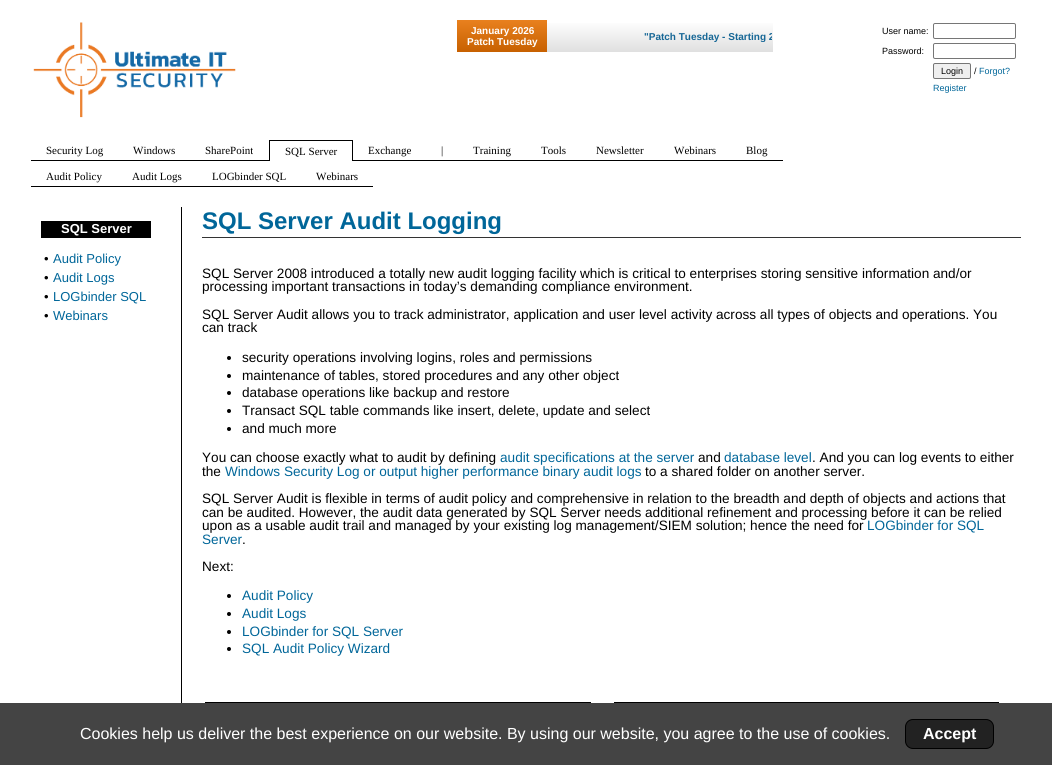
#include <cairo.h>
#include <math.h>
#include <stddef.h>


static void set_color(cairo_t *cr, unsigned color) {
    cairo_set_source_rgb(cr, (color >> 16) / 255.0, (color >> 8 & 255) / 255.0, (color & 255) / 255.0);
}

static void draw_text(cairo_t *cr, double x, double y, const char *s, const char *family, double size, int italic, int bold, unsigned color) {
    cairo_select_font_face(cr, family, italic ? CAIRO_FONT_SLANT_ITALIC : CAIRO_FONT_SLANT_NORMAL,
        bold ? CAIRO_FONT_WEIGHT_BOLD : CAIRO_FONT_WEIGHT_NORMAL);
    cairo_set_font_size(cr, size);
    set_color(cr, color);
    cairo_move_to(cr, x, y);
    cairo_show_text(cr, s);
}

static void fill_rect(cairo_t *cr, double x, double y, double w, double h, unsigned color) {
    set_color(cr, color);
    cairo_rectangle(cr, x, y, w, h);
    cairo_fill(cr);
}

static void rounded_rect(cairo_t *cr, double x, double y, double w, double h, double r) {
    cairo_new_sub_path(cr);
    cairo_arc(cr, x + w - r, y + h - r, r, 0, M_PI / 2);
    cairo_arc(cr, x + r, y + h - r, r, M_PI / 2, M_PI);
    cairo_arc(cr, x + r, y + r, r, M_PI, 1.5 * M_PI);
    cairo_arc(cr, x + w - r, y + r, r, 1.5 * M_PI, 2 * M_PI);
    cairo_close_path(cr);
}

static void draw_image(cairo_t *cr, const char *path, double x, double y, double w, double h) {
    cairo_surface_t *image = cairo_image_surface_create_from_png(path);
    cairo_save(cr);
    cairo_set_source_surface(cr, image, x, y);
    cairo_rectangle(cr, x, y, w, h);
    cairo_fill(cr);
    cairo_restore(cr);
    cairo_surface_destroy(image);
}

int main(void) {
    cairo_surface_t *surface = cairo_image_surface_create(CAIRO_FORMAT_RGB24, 1052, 765);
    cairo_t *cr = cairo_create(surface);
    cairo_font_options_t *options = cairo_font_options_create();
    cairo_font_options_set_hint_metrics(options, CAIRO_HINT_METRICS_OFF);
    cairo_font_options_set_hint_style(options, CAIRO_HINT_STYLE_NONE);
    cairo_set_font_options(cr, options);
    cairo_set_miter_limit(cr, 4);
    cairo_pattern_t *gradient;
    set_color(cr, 0xFFFFFF);
    cairo_paint(cr);
    draw_image(cr, "assets/img1.png", 33, 22, 203, 96);
    gradient = cairo_pattern_create_linear(502, 20, 502, 52);
    cairo_pattern_add_color_stop_rgba(gradient, 0, 0.91, 0.502, 0.118, 1);
    cairo_pattern_add_color_stop_rgba(gradient, 1, 0.784, 0.38, 0.004, 1);
    cairo_set_source(cr, gradient);
    cairo_pattern_destroy(gradient);
    cairo_rectangle(cr, 457, 20, 90, 32);
    cairo_fill(cr);
    draw_text(cr, 471, 34, "January 2026", "Liberation Sans", 10, 0, 1, 0xFFFFFF);
    draw_text(cr, 467, 45, "Patch Tuesday", "Liberation Sans", 10, 0, 1, 0xFFFFFF);
    gradient = cairo_pattern_create_linear(660, 20, 660, 52);
    cairo_pattern_add_color_stop_rgba(gradient, 0, 1, 1, 1, 1);
    cairo_pattern_add_color_stop_rgba(gradient, 1, 0.875, 0.875, 0.875, 1);
    cairo_set_source(cr, gradient);
    cairo_pattern_destroy(gradient);
    cairo_rectangle(cr, 547, 23, 226, 29);
    cairo_fill(cr);
    cairo_save(cr);
    cairo_rectangle(cr, 548, 31, 224, 11);
    cairo_clip(cr);
    draw_text(cr, 644, 40, "\"Patch Tuesday - Starting 2", "Liberation Sans", 10, 0, 1, 0x166796);
    cairo_restore(cr);
    draw_text(cr, 882, 34, "User name:", "Liberation Sans", 9, 0, 0, 0x000000);
    rounded_rect(cr, 933.5, 23.5, 82, 15, 1.5);
    set_color(cr, 0x767676);
    cairo_set_line_width(cr, 1);
    cairo_stroke(cr);
    draw_text(cr, 882, 54, "Password:", "Liberation Sans", 9, 0, 0, 0x000000);
    rounded_rect(cr, 933.5, 43.5, 82, 15, 1.5);
    set_color(cr, 0x767676);
    cairo_stroke(cr);
    set_color(cr, 0xEFEFEF);
    rounded_rect(cr, 933.5, 63.5, 37, 15, 1.5);
    cairo_fill_preserve(cr);
    set_color(cr, 0x767676);
    cairo_stroke(cr);
    draw_text(cr, 941, 74, "Login", "Liberation Sans", 9, 0, 0, 0x000000);
    draw_text(cr, 974, 74, "/", "Liberation Sans", 9, 0, 0, 0x000000);
    draw_text(cr, 979, 74, "Forgot?", "Liberation Sans", 9, 0, 0, 0x006699);
    draw_text(cr, 933, 91, "Register", "Liberation Sans", 9, 0, 0, 0x006699);
    fill_rect(cr, 31, 160, 238, 1, 0x000000);
    draw_text(cr, 46, 154, "Security Log", "Liberation Serif", 11, 0, 0, 0x000000);
    draw_text(cr, 133, 154, "Windows", "Liberation Serif", 11, 0, 0, 0x000000);
    draw_text(cr, 205, 154, "SharePoint", "Liberation Serif", 11, 0, 0, 0x000000);
    fill_rect(cr, 269, 140, 84, 1, 0x000000);
    fill_rect(cr, 352, 140, 1, 21, 0x000000);
    fill_rect(cr, 269, 140, 1, 21, 0x000000);
    draw_text(cr, 285, 155, "SQL Server", "Liberation Serif", 11, 0, 0, 0x000000);
    fill_rect(cr, 353, 160, 430, 1, 0x000000);
    draw_text(cr, 368, 154, "Exchange", "Liberation Serif", 11, 0, 0, 0x000000);
    draw_text(cr, 441, 154, "|", "Liberation Serif", 11, 0, 0, 0x000000);
    draw_text(cr, 473, 154, "Training", "Liberation Serif", 11, 0, 0, 0x000000);
    draw_text(cr, 541, 154, "Tools", "Liberation Serif", 11, 0, 0, 0x000000);
    draw_text(cr, 596, 154, "Newsletter", "Liberation Serif", 11, 0, 0, 0x000000);
    draw_text(cr, 674, 154, "Webinars", "Liberation Serif", 11, 0, 0, 0x000000);
    draw_text(cr, 746, 154, "Blog", "Liberation Serif", 11, 0, 0, 0x000000);
    fill_rect(cr, 31, 186, 342, 1, 0x000000);
    draw_text(cr, 46, 180, "Audit Policy", "Liberation Serif", 11, 0, 0, 0x000000);
    draw_text(cr, 132, 180, "Audit Logs", "Liberation Serif", 11, 0, 0, 0x000000);
    draw_text(cr, 212, 180, "LOGbinder SQL", "Liberation Serif", 11, 0, 0, 0x000000);
    draw_text(cr, 316, 180, "Webinars", "Liberation Serif", 11, 0, 0, 0x000000);
    fill_rect(cr, 41, 221, 110, 17, 0x000000);
    draw_text(cr, 61, 233, "SQL Server", "Liberation Sans", 13, 0, 1, 0xFFFFFF);
    draw_text(cr, 44, 263, "•", "Liberation Sans", 13, 0, 0, 0x000000);
    draw_text(cr, 53, 263, "Audit Policy", "Liberation Sans", 13, 0, 0, 0x006699);
    draw_text(cr, 44, 282, "•", "Liberation Sans", 13, 0, 0, 0x000000);
    draw_text(cr, 53, 282, "Audit Logs", "Liberation Sans", 13, 0, 0, 0x006699);
    draw_text(cr, 44, 301, "•", "Liberation Sans", 13, 0, 0, 0x000000);
    draw_text(cr, 53, 301, "LOGbinder SQL", "Liberation Sans", 13, 0, 0, 0x006699);
    draw_text(cr, 44, 320, "•", "Liberation Sans", 13, 0, 0, 0x000000);
    draw_text(cr, 53, 320, "Webinars", "Liberation Sans", 13, 0, 0, 0x006699);
    fill_rect(cr, 181, 207, 1, 496, 0x000000);
    fill_rect(cr, 202, 237, 819, 1, 0x333333);
    draw_text(cr, 202, 229, "SQL Server Audit Logging", "Liberation Sans", 24, 0, 1, 0x006699);
    draw_text(cr, 202, 278, "SQL Server 2008 introduced a totally new audit logging facility which is critical to enterprises storing sensitive information and/or", "Liberation Sans", 13.6, 0, 0, 0x000000);
    draw_text(cr, 202, 291, "processing important transactions in today’s demanding compliance environment.", "Liberation Sans", 13.6, 0, 0, 0x000000);
    draw_text(cr, 202, 319, "SQL Server Audit allows you to track administrator, application and user level activity across all types of objects and operations. You", "Liberation Sans", 13.6, 0, 0, 0x000000);
    draw_text(cr, 202, 332, "can track", "Liberation Sans", 13.6, 0, 0, 0x000000);
    cairo_new_path(cr);
    cairo_arc(cr, 229, 358, 2, 0, 2 * M_PI);
    cairo_fill(cr);
    draw_text(cr, 242, 362, "security operations involving logins, roles and permissions", "Liberation Sans", 13.6, 0, 0, 0x000000);
    cairo_new_path(cr);
    cairo_arc(cr, 229, 376, 2, 0, 2 * M_PI);
    cairo_fill(cr);
    draw_text(cr, 242, 380, "maintenance of tables, stored procedures and any other object", "Liberation Sans", 13.6, 0, 0, 0x000000);
    cairo_new_path(cr);
    cairo_arc(cr, 229, 393, 2, 0, 2 * M_PI);
    cairo_fill(cr);
    draw_text(cr, 242, 397, "database operations like backup and restore", "Liberation Sans", 13.6, 0, 0, 0x000000);
    cairo_new_path(cr);
    cairo_arc(cr, 229, 411, 2, 0, 2 * M_PI);
    cairo_fill(cr);
    draw_text(cr, 242, 415, "Transact SQL table commands like insert, delete, update and select", "Liberation Sans", 13.6, 0, 0, 0x000000);
    cairo_new_path(cr);
    cairo_arc(cr, 229, 429, 2, 0, 2 * M_PI);
    cairo_fill(cr);
    draw_text(cr, 242, 433, "and much more", "Liberation Sans", 13.6, 0, 0, 0x000000);
    draw_text(cr, 202, 462, "You can choose exactly what to audit by defining", "Liberation Sans", 13.6, 0, 0, 0x000000);
    draw_text(cr, 500, 462, "audit specifications at the server", "Liberation Sans", 13.6, 0, 0, 0x006699);
    draw_text(cr, 698, 462, "and", "Liberation Sans", 13.6, 0, 0, 0x000000);
    draw_text(cr, 724, 462, "database level", "Liberation Sans", 13.6, 0, 0, 0x006699);
    draw_text(cr, 812, 462, ". And you can log events to either", "Liberation Sans", 13.6, 0, 0, 0x000000);
    draw_text(cr, 202, 476, "the", "Liberation Sans", 13.6, 0, 0, 0x000000);
    draw_text(cr, 225, 476, "Windows Security Log or output higher performance binary audit logs", "Liberation Sans", 13.6, 0, 0, 0x006699);
    draw_text(cr, 645, 476, "to a shared folder on another server.", "Liberation Sans", 13.6, 0, 0, 0x000000);
    draw_text(cr, 202, 503, "SQL Server Audit is flexible in terms of audit policy and comprehensive in relation to the breadth and depth of objects and actions that", "Liberation Sans", 13.6, 0, 0, 0x000000);
    draw_text(cr, 202, 517, "can be audited. However, the audit data generated by SQL Server needs additional refinement and processing before it can be relied", "Liberation Sans", 13.6, 0, 0, 0x000000);
    draw_text(cr, 202, 530, "upon as a usable audit trail and managed by your existing log management/SIEM solution; hence the need for", "Liberation Sans", 13.6, 0, 0, 0x000000);
    draw_text(cr, 867, 530, "LOGbinder for SQL", "Liberation Sans", 13.6, 0, 0, 0x006699);
    draw_text(cr, 202, 544, "Server", "Liberation Sans", 13.6, 0, 0, 0x006699);
    draw_text(cr, 242, 544, ".", "Liberation Sans", 13.6, 0, 0, 0x000000);
    draw_text(cr, 202, 571, "Next:", "Liberation Sans", 13.6, 0, 0, 0x000000);
    cairo_new_path(cr);
    cairo_arc(cr, 229, 596, 2, 0, 2 * M_PI);
    cairo_fill(cr);
    draw_text(cr, 242, 600, "Audit Policy", "Liberation Sans", 13.6, 0, 0, 0x006699);
    set_color(cr, 0x000000);
    cairo_new_path(cr);
    cairo_arc(cr, 229, 614, 2, 0, 2 * M_PI);
    cairo_fill(cr);
    draw_text(cr, 242, 618, "Audit Logs", "Liberation Sans", 13.6, 0, 0, 0x006699);
    set_color(cr, 0x000000);
    cairo_new_path(cr);
    cairo_arc(cr, 229, 632, 2, 0, 2 * M_PI);
    cairo_fill(cr);
    draw_text(cr, 242, 636, "LOGbinder for SQL Server", "Liberation Sans", 13.6, 0, 0, 0x006699);
    set_color(cr, 0x000000);
    cairo_new_path(cr);
    cairo_arc(cr, 229, 649, 2, 0, 2 * M_PI);
    cairo_fill(cr);
    draw_text(cr, 242, 653, "SQL Audit Policy Wizard", "Liberation Sans", 13.6, 0, 0, 0x006699);
    fill_rect(cr, 205, 702, 386, 1, 0x000000);
    fill_rect(cr, 614, 702, 385, 1, 0x000000);
    fill_rect(cr, 0, 703, 1052, 62, 0x444444);
    draw_text(cr, 80, 739, "Cookies help us deliver the best experience on our website. By using our website, you agree to the use of cookies.", "Liberation Sans", 16, 0, 0, 0xFFFFFF);
    set_color(cr, 0x222222);
    rounded_rect(cr, 905.5, 719.5, 88, 29, 7.5);
    cairo_fill_preserve(cr);
    set_color(cr, 0x000000);
    cairo_stroke(cr);
    draw_text(cr, 923, 739, "Accept", "Liberation Sans", 16, 0, 1, 0xFFFFFF);
    cairo_surface_write_to_png(surface, "output.png");
    cairo_font_options_destroy(options);
    cairo_destroy(cr);
    cairo_surface_destroy(surface);
    return 0;
}
